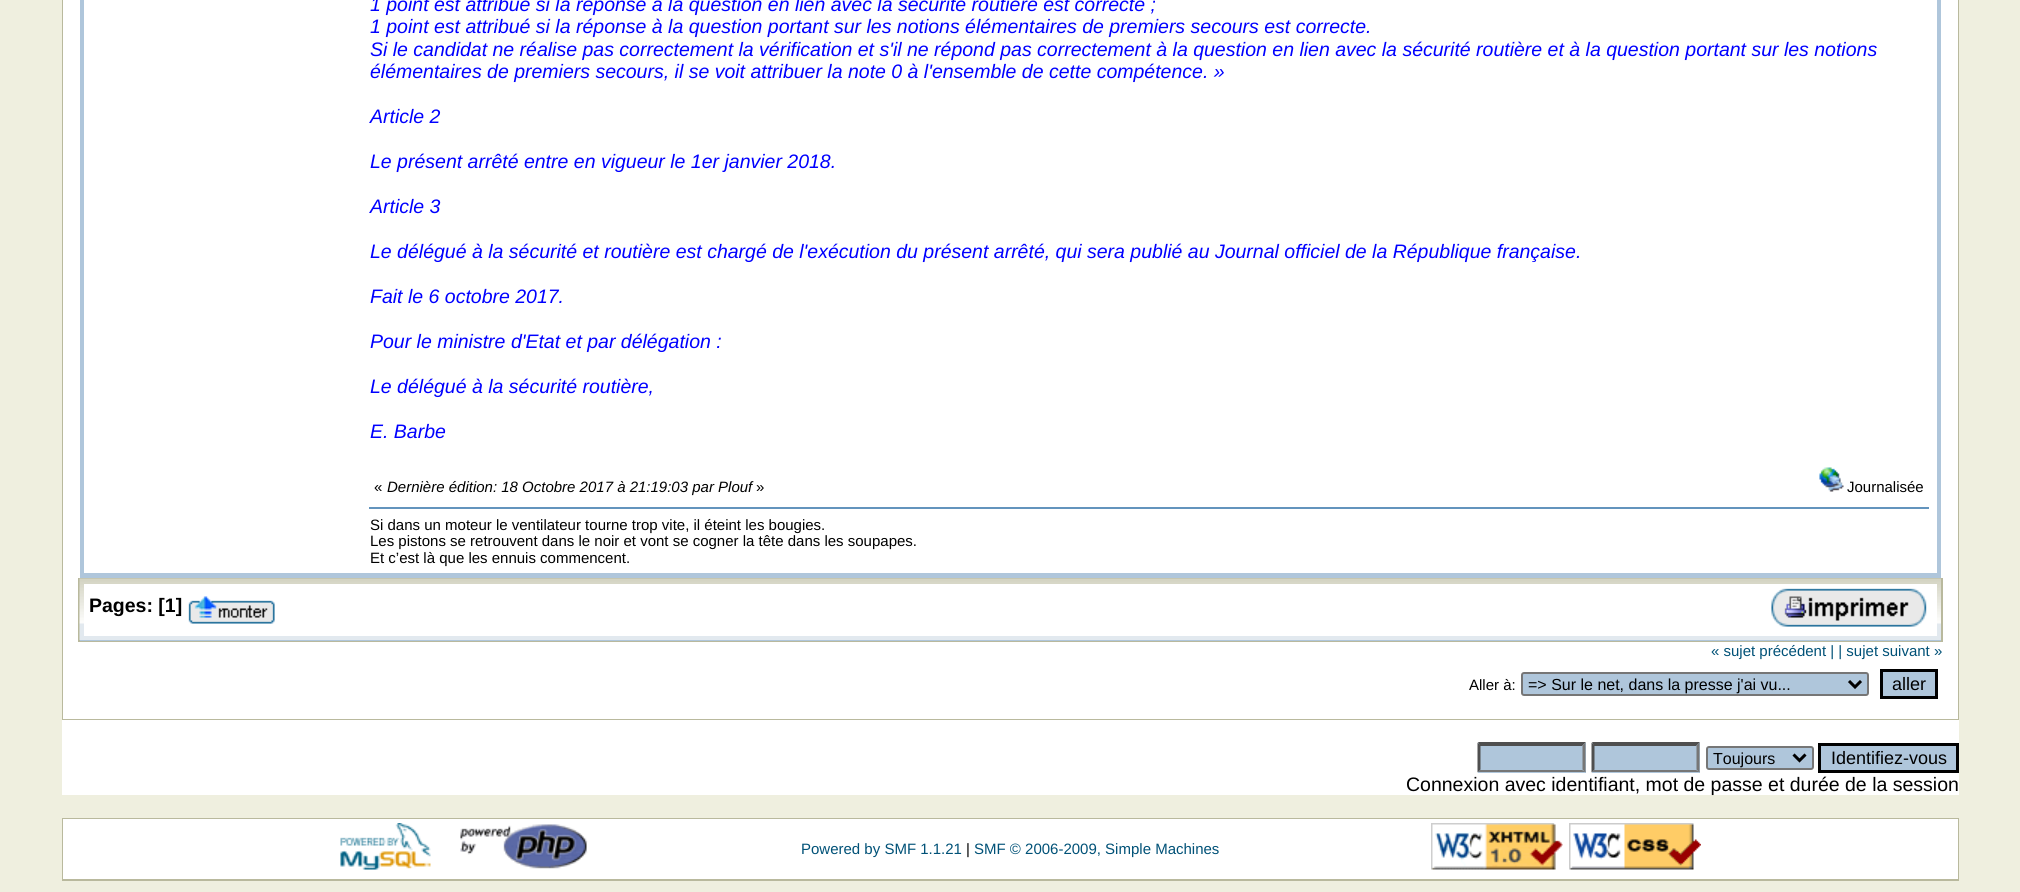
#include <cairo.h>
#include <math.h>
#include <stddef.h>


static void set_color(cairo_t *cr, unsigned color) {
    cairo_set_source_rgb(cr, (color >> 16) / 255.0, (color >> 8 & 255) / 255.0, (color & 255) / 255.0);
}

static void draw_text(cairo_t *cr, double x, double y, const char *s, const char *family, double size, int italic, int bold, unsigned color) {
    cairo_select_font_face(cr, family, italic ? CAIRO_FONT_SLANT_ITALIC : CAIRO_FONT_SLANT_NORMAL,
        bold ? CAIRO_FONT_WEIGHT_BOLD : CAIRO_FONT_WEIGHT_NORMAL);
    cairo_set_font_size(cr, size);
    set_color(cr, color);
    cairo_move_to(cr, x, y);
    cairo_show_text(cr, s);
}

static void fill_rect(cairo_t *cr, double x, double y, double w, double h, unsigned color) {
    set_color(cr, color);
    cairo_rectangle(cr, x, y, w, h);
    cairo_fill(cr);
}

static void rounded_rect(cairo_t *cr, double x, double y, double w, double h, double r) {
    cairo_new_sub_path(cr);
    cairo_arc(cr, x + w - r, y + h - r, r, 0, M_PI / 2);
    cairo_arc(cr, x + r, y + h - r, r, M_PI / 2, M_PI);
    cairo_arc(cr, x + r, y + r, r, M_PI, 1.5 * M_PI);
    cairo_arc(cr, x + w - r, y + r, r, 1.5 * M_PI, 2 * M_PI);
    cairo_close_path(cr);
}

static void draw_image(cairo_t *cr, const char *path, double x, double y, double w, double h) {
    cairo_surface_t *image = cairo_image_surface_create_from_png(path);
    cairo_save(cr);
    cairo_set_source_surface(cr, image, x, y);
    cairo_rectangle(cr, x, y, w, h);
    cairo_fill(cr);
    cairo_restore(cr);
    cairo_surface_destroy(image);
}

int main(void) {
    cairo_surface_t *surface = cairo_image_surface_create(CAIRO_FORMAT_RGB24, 2020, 892);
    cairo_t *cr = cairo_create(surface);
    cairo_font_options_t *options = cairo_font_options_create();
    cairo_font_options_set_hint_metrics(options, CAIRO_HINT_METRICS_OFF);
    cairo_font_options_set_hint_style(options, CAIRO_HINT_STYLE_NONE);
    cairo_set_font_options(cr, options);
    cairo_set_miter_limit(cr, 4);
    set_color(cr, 0xEFEFDF);
    cairo_paint(cr);
    cairo_rectangle(cr, 63, -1, 1895, 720);
    set_color(cr, 0xB9B99D);
    cairo_stroke(cr);
    fill_rect(cr, 63, 0, 1895, 719, 0xFFFFFF);
    fill_rect(cr, 80, 0, 1861, 578, 0xAFC6DB);
    fill_rect(cr, 84, 0, 278, 573, 0xFFFFFF);
    fill_rect(cr, 362, 0, 1575, 573, 0xFFFFFF);
    draw_text(cr, 370, 11, "1 point est attribué si la réponse à la question en lien avec la sécurité routière est correcte ;", "Liberation Sans", 19.5, 1, 0, 0x0000FF);
    draw_text(cr, 370, 33, "1 point est attribué si la réponse à la question portant sur les notions élémentaires de premiers secours est correcte.", "Liberation Sans", 19.5, 1, 0, 0x0000FF);
    draw_text(cr, 370, 56, "Si le candidat ne réalise pas correctement la vérification et s'il ne répond pas correctement à la question en lien avec la sécurité routière et à la question portant sur les notions", "Liberation Sans", 19.5, 1, 0, 0x0000FF);
    draw_text(cr, 370, 78, "élémentaires de premiers secours, il se voit attribuer la note 0 à l'ensemble de cette compétence. »", "Liberation Sans", 19.5, 1, 0, 0x0000FF);
    draw_text(cr, 370, 123, "Article 2", "Liberation Sans", 19.5, 1, 0, 0x0000FF);
    draw_text(cr, 370, 168, "Le présent arrêté entre en vigueur le 1er janvier 2018.", "Liberation Sans", 19.5, 1, 0, 0x0000FF);
    draw_text(cr, 370, 213, "Article 3", "Liberation Sans", 19.5, 1, 0, 0x0000FF);
    draw_text(cr, 370, 258, "Le délégué à la sécurité et routière est chargé de l'exécution du présent arrêté, qui sera publié au Journal officiel de la République française.", "Liberation Sans", 19.5, 1, 0, 0x0000FF);
    draw_text(cr, 370, 303, "Fait le 6 octobre 2017.", "Liberation Sans", 19.5, 1, 0, 0x0000FF);
    draw_text(cr, 370, 348, "Pour le ministre d'Etat et par délégation :", "Liberation Sans", 19.5, 1, 0, 0x0000FF);
    draw_text(cr, 370, 393, "Le délégué à la sécurité routière,", "Liberation Sans", 19.5, 1, 0, 0x0000FF);
    draw_text(cr, 370, 438, "E. Barbe", "Liberation Sans", 19.5, 1, 0, 0x0000FF);
    draw_text(cr, 374, 492, "«", "Liberation Sans", 15, 0, 0, 0x000000);
    draw_text(cr, 387, 492, "Dernière édition: 18 Octobre 2017 à 21:19:03 par Plouf", "Liberation Sans", 15, 1, 0, 0x000000);
    draw_text(cr, 756, 492, "»", "Liberation Sans", 15, 0, 0, 0x000000);
    draw_image(cr, "assets/img1.png", 1819, 467, 25, 25);
    draw_text(cr, 1847, 492, "Journalisée", "Liberation Sans", 15, 0, 0, 0x000000);
    fill_rect(cr, 369, 507, 1560, 2, 0x6394BD);
    draw_text(cr, 370, 530, "Si dans un moteur le ventilateur tourne trop vite, il éteint les bougies.", "Liberation Sans", 15, 0, 0, 0x000000);
    draw_text(cr, 370, 546, "Les pistons se retrouvent dans le noir et vont se cogner la tête dans les soupapes.", "Liberation Sans", 15, 0, 0, 0x000000);
    draw_text(cr, 370, 563, "Et c’est là que les ennuis commencent.", "Liberation Sans", 15, 0, 0, 0x000000);
    fill_rect(cr, 78, 578, 1865, 64, 0xB9B99D);
    fill_rect(cr, 80, 640, 1861, 1, 0xAFC6DB);
    draw_image(cr, "assets/img2.png", 79, 578, 1862, 62);
    fill_rect(cr, 84, 584, 1853, 52, 0xFFFFFF);
    draw_text(cr, 89, 612, "Pages: [1]", "Liberation Sans", 19.5, 0, 1, 0x000000);
    draw_image(cr, "assets/img3.png", 188, 596, 87, 28);
    draw_image(cr, "assets/img4.png", 1771, 588, 156, 39);
    draw_text(cr, 1711, 656, "« sujet précédent | | sujet suivant »", "Liberation Sans", 15, 0, 0, 0x005177);
    draw_text(cr, 1469, 690, "Aller à:", "Liberation Sans", 15, 0, 0, 0x000000);
    set_color(cr, 0xAFC6DB);
    rounded_rect(cr, 1522, 673, 346, 22, 2);
    cairo_fill_preserve(cr);
    set_color(cr, 0x767676);
    cairo_stroke(cr);
    cairo_new_path(cr);
    cairo_move_to(cr, 1849, 681);
    cairo_line_to(cr, 1855, 687);
    cairo_line_to(cr, 1861, 681);
    set_color(cr, 0x000000);
    cairo_set_line_width(cr, 3);
    cairo_stroke(cr);
    draw_text(cr, 1528, 690, "=> Sur le net, dans la presse j'ai vu...", "Liberation Sans", 16, 0, 0, 0x000000);
    set_color(cr, 0xAFC6DB);
    cairo_rectangle(cr, 1881.5, 670.5, 55, 27);
    cairo_fill_preserve(cr);
    set_color(cr, 0x000000);
    cairo_stroke(cr);
    draw_text(cr, 1892, 690, "aller", "Liberation Sans", 18, 0, 0, 0x000000);
    fill_rect(cr, 62, 720, 1897, 75, 0xFFFFFF);
    fill_rect(cr, 1478, 743, 108, 30, 0xAFC6DB);
    set_color(cr, 0x4F4F4F);
    cairo_new_path(cr);
    cairo_move_to(cr, 1478, 742);
    cairo_line_to(cr, 1586, 742);
    cairo_line_to(cr, 1582, 746);
    cairo_line_to(cr, 1480, 746);
    cairo_close_path(cr);
    cairo_fill(cr);
    set_color(cr, 0x767676);
    cairo_new_path(cr);
    cairo_move_to(cr, 1585.5, 742.5);
    cairo_line_to(cr, 1585.5, 772.5);
    cairo_line_to(cr, 1582.5, 769.5);
    cairo_line_to(cr, 1582.5, 745.5);
    cairo_close_path(cr);
    cairo_fill(cr);
    cairo_new_path(cr);
    cairo_move_to(cr, 1586, 772);
    cairo_line_to(cr, 1478, 772);
    cairo_line_to(cr, 1480, 770);
    cairo_line_to(cr, 1582, 770);
    cairo_close_path(cr);
    cairo_fill(cr);
    set_color(cr, 0x4F4F4F);
    cairo_new_path(cr);
    cairo_move_to(cr, 1477.5, 772.5);
    cairo_line_to(cr, 1477.5, 742.5);
    cairo_line_to(cr, 1480.5, 745.5);
    cairo_line_to(cr, 1480.5, 769.5);
    cairo_close_path(cr);
    cairo_fill(cr);
    fill_rect(cr, 1592, 743, 108, 30, 0xAFC6DB);
    set_color(cr, 0x4F4F4F);
    cairo_new_path(cr);
    cairo_move_to(cr, 1592, 742);
    cairo_line_to(cr, 1700, 742);
    cairo_line_to(cr, 1696, 746);
    cairo_line_to(cr, 1594, 746);
    cairo_close_path(cr);
    cairo_fill(cr);
    set_color(cr, 0x767676);
    cairo_new_path(cr);
    cairo_move_to(cr, 1699.5, 742.5);
    cairo_line_to(cr, 1699.5, 772.5);
    cairo_line_to(cr, 1696.5, 769.5);
    cairo_line_to(cr, 1696.5, 745.5);
    cairo_close_path(cr);
    cairo_fill(cr);
    cairo_new_path(cr);
    cairo_move_to(cr, 1700, 772);
    cairo_line_to(cr, 1592, 772);
    cairo_line_to(cr, 1594, 770);
    cairo_line_to(cr, 1696, 770);
    cairo_close_path(cr);
    cairo_fill(cr);
    set_color(cr, 0x4F4F4F);
    cairo_new_path(cr);
    cairo_move_to(cr, 1591.5, 772.5);
    cairo_line_to(cr, 1591.5, 742.5);
    cairo_line_to(cr, 1594.5, 745.5);
    cairo_line_to(cr, 1594.5, 769.5);
    cairo_close_path(cr);
    cairo_fill(cr);
    set_color(cr, 0xAFC6DB);
    rounded_rect(cr, 1707, 747, 106, 22, 2);
    cairo_fill_preserve(cr);
    set_color(cr, 0x767676);
    cairo_set_line_width(cr, 2);
    cairo_stroke(cr);
    cairo_new_path(cr);
    cairo_move_to(cr, 1793.5, 754.5);
    cairo_line_to(cr, 1799.5, 760.5);
    cairo_line_to(cr, 1805.5, 754.5);
    set_color(cr, 0x000000);
    cairo_set_line_width(cr, 3);
    cairo_stroke(cr);
    draw_text(cr, 1713, 764, "Toujours", "Liberation Sans", 16, 0, 0, 0x000000);
    set_color(cr, 0xAFC6DB);
    cairo_rectangle(cr, 1819.5, 744.5, 138, 27);
    cairo_fill_preserve(cr);
    set_color(cr, 0x000000);
    cairo_stroke(cr);
    draw_text(cr, 1831, 764, "Identifiez-vous", "Liberation Sans", 18, 0, 0, 0x000000);
    draw_text(cr, 1406, 791, "Connexion avec identifiant, mot de passe et durée de la session", "Liberation Sans", 19.5, 0, 0, 0x000000);
    cairo_rectangle(cr, 63, 819, 1895, 61);
    set_color(cr, 0xB9B99D);
    cairo_set_line_width(cr, 2);
    cairo_stroke(cr);
    fill_rect(cr, 63, 819, 1895, 60, 0xFFFFFF);
    draw_image(cr, "assets/img5.png", 340, 823, 91, 47);
    draw_image(cr, "assets/img6.png", 460, 824, 128, 45);
    draw_text(cr, 801, 854, "Powered by SMF 1.1.21", "Liberation Sans", 15, 0, 0, 0x005177);
    draw_text(cr, 966, 854, "|", "Liberation Sans", 15, 0, 0, 0x000000);
    draw_text(cr, 974, 854, "SMF © 2006-2009, Simple Machines", "Liberation Sans", 15, 0, 0, 0x005177);
    draw_image(cr, "assets/img7.png", 1431, 823, 132, 47);
    draw_image(cr, "assets/img8.png", 1569, 823, 132, 47);
    cairo_surface_write_to_png(surface, "output.png");
    cairo_font_options_destroy(options);
    cairo_destroy(cr);
    cairo_surface_destroy(surface);
    return 0;
}
